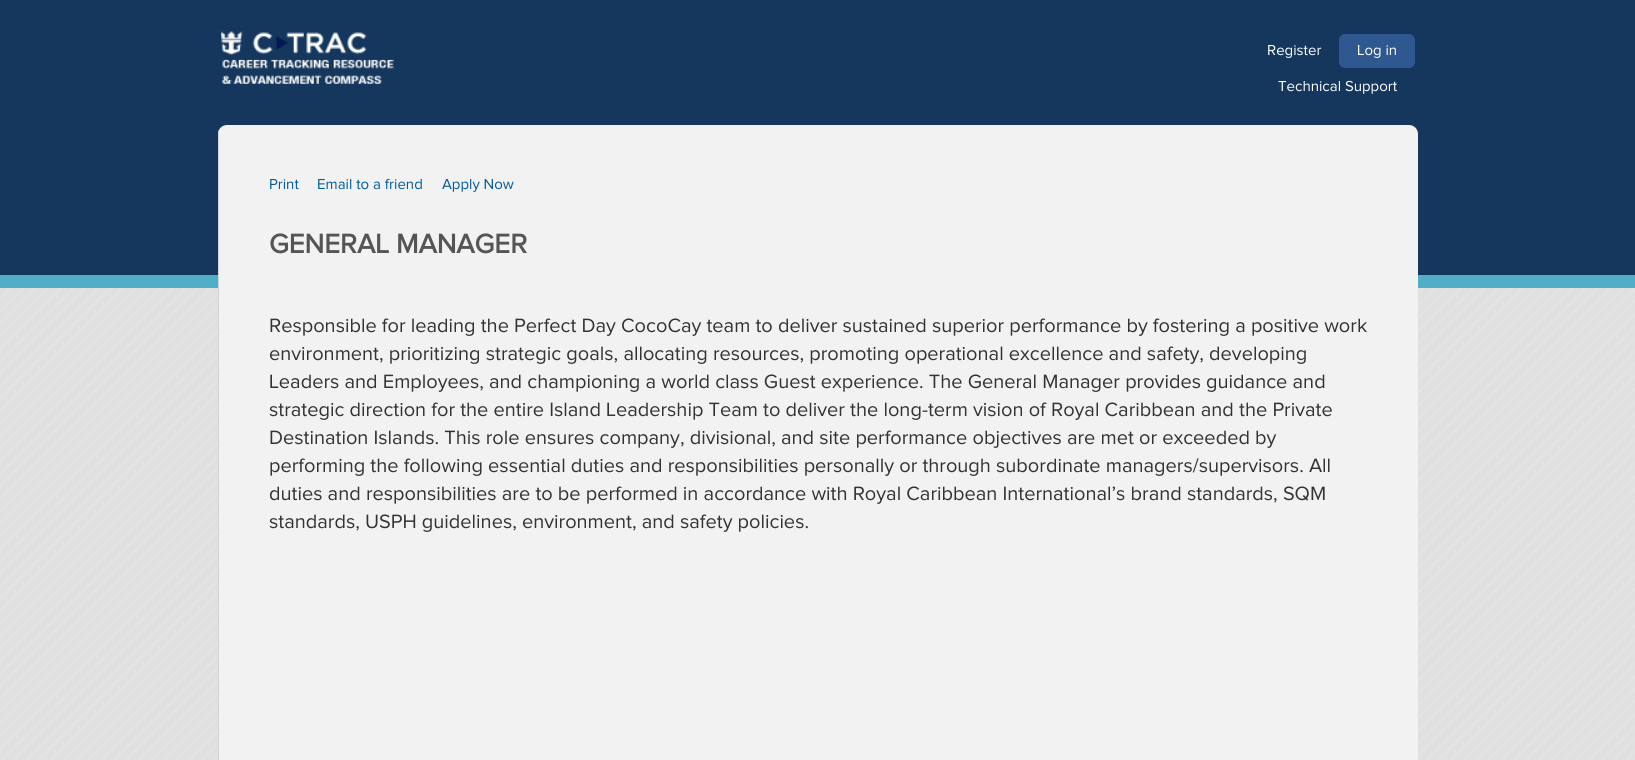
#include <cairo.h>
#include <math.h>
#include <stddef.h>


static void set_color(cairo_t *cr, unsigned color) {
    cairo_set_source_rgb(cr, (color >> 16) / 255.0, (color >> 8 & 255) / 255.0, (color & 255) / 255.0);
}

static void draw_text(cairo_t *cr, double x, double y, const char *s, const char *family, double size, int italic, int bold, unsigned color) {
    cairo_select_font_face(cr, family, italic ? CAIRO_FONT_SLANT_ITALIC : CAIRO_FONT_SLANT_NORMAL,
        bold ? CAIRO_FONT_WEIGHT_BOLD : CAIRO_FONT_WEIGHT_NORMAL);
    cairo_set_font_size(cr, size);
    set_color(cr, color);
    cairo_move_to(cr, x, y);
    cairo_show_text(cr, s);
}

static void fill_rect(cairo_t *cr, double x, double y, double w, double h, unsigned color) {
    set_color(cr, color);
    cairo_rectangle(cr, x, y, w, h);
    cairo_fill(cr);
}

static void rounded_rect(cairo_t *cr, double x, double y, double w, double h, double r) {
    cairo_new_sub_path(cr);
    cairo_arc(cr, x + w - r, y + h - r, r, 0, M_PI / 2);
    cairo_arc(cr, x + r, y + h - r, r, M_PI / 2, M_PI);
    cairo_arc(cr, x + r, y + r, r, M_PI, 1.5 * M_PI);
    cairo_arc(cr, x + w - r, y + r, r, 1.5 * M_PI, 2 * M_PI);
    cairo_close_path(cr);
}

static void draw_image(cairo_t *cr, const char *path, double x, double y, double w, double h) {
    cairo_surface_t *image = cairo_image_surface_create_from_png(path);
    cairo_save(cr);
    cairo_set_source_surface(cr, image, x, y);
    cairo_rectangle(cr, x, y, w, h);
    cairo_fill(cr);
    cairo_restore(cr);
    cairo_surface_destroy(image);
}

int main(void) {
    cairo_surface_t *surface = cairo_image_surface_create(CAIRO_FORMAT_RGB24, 1635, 760);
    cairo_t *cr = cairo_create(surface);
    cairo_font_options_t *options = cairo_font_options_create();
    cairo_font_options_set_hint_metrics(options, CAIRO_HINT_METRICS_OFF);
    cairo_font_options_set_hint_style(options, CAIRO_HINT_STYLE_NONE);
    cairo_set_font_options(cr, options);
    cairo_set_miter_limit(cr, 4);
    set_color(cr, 0xFFFFFF);
    cairo_paint(cr);
    draw_image(cr, "assets/img1.png", 0, 288, 1635, 472);
    fill_rect(cr, 0, 0, 1635, 275, 0x15375D);
    fill_rect(cr, 0, 275, 1635, 13, 0x50AEC8);
    draw_image(cr, "assets/img2.png", 221, 31, 173, 53);
    draw_text(cr, 1267, 55, "Register", "Proxima Nova", 15, 0, 0, 0xFFFFFF);
    set_color(cr, 0x2F5890);
    rounded_rect(cr, 1339, 34, 76, 34, 6);
    cairo_fill(cr);
    draw_text(cr, 1357, 55, "Log in", "Proxima Nova", 15, 0, 0, 0xFFFFFF);
    draw_text(cr, 1278, 91, "Technical Support", "Proxima Nova", 15, 0, 0, 0xFFFFFF);
    set_color(cr, 0xF2F2F2);
    cairo_new_path(cr);
    cairo_move_to(cr, 227, 125);
    cairo_line_to(cr, 1409, 125);
    cairo_curve_to(cr, 1414, 125, 1418, 129, 1418, 134);
    cairo_line_to(cr, 1418, 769);
    cairo_line_to(cr, 218, 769);
    cairo_line_to(cr, 218, 134);
    cairo_curve_to(cr, 218, 129, 222, 125, 227, 125);
    cairo_close_path(cr);
    cairo_fill(cr);
    cairo_save(cr);
    cairo_new_path(cr);
    cairo_move_to(cr, 227, 125);
    cairo_line_to(cr, 1409, 125);
    cairo_curve_to(cr, 1414, 125, 1418, 129, 1418, 134);
    cairo_line_to(cr, 1418, 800);
    cairo_line_to(cr, 218, 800);
    cairo_line_to(cr, 218, 134);
    cairo_curve_to(cr, 218, 129, 222, 125, 227, 125);
    cairo_close_path(cr);
    cairo_clip(cr);
    fill_rect(cr, 218, 125, 1, 635, 0xD5D5D5);
    cairo_restore(cr);
    draw_text(cr, 269, 189, "Print", "Proxima Nova", 15, 0, 0, 0x005B98);
    draw_text(cr, 317, 189, "Email to a friend", "Proxima Nova", 15, 0, 0, 0x005B98);
    draw_text(cr, 442, 189, "Apply Now", "Proxima Nova", 15, 0, 0, 0x005B98);
    draw_text(cr, 269, 253, "GENERAL MANAGER", "Proxima Nova", 27.75, 0, 1, 0x555555);
    draw_text(cr, 269, 332, "Responsible for leading the Perfect Day CocoCay team to deliver sustained superior performance by fostering a positive work", "Proxima Nova", 20, 0, 0, 0x333333);
    draw_text(cr, 269, 360, "environment, prioritizing strategic goals, allocating resources, promoting operational excellence and safety, developing", "Proxima Nova", 20, 0, 0, 0x333333);
    draw_text(cr, 269, 388, "Leaders and Employees, and championing a world class Guest experience. The General Manager provides guidance and", "Proxima Nova", 20, 0, 0, 0x333333);
    draw_text(cr, 269, 416, "strategic direction for the entire Island Leadership Team to deliver the long-term vision of Royal Caribbean and the Private", "Proxima Nova", 20, 0, 0, 0x333333);
    draw_text(cr, 269, 444, "Destination Islands. This role ensures company, divisional, and site performance objectives are met or exceeded by", "Proxima Nova", 20, 0, 0, 0x333333);
    draw_text(cr, 269, 472, "performing the following essential duties and responsibilities personally or through subordinate managers/supervisors. All", "Proxima Nova", 20, 0, 0, 0x333333);
    draw_text(cr, 269, 500, "duties and responsibilities are to be performed in accordance with Royal Caribbean International’s brand standards, SQM", "Proxima Nova", 20, 0, 0, 0x333333);
    draw_text(cr, 269, 528, "standards, USPH guidelines, environment, and safety policies.", "Proxima Nova", 20, 0, 0, 0x333333);
    cairo_surface_write_to_png(surface, "output.png");
    cairo_font_options_destroy(options);
    cairo_destroy(cr);
    cairo_surface_destroy(surface);
    return 0;
}
